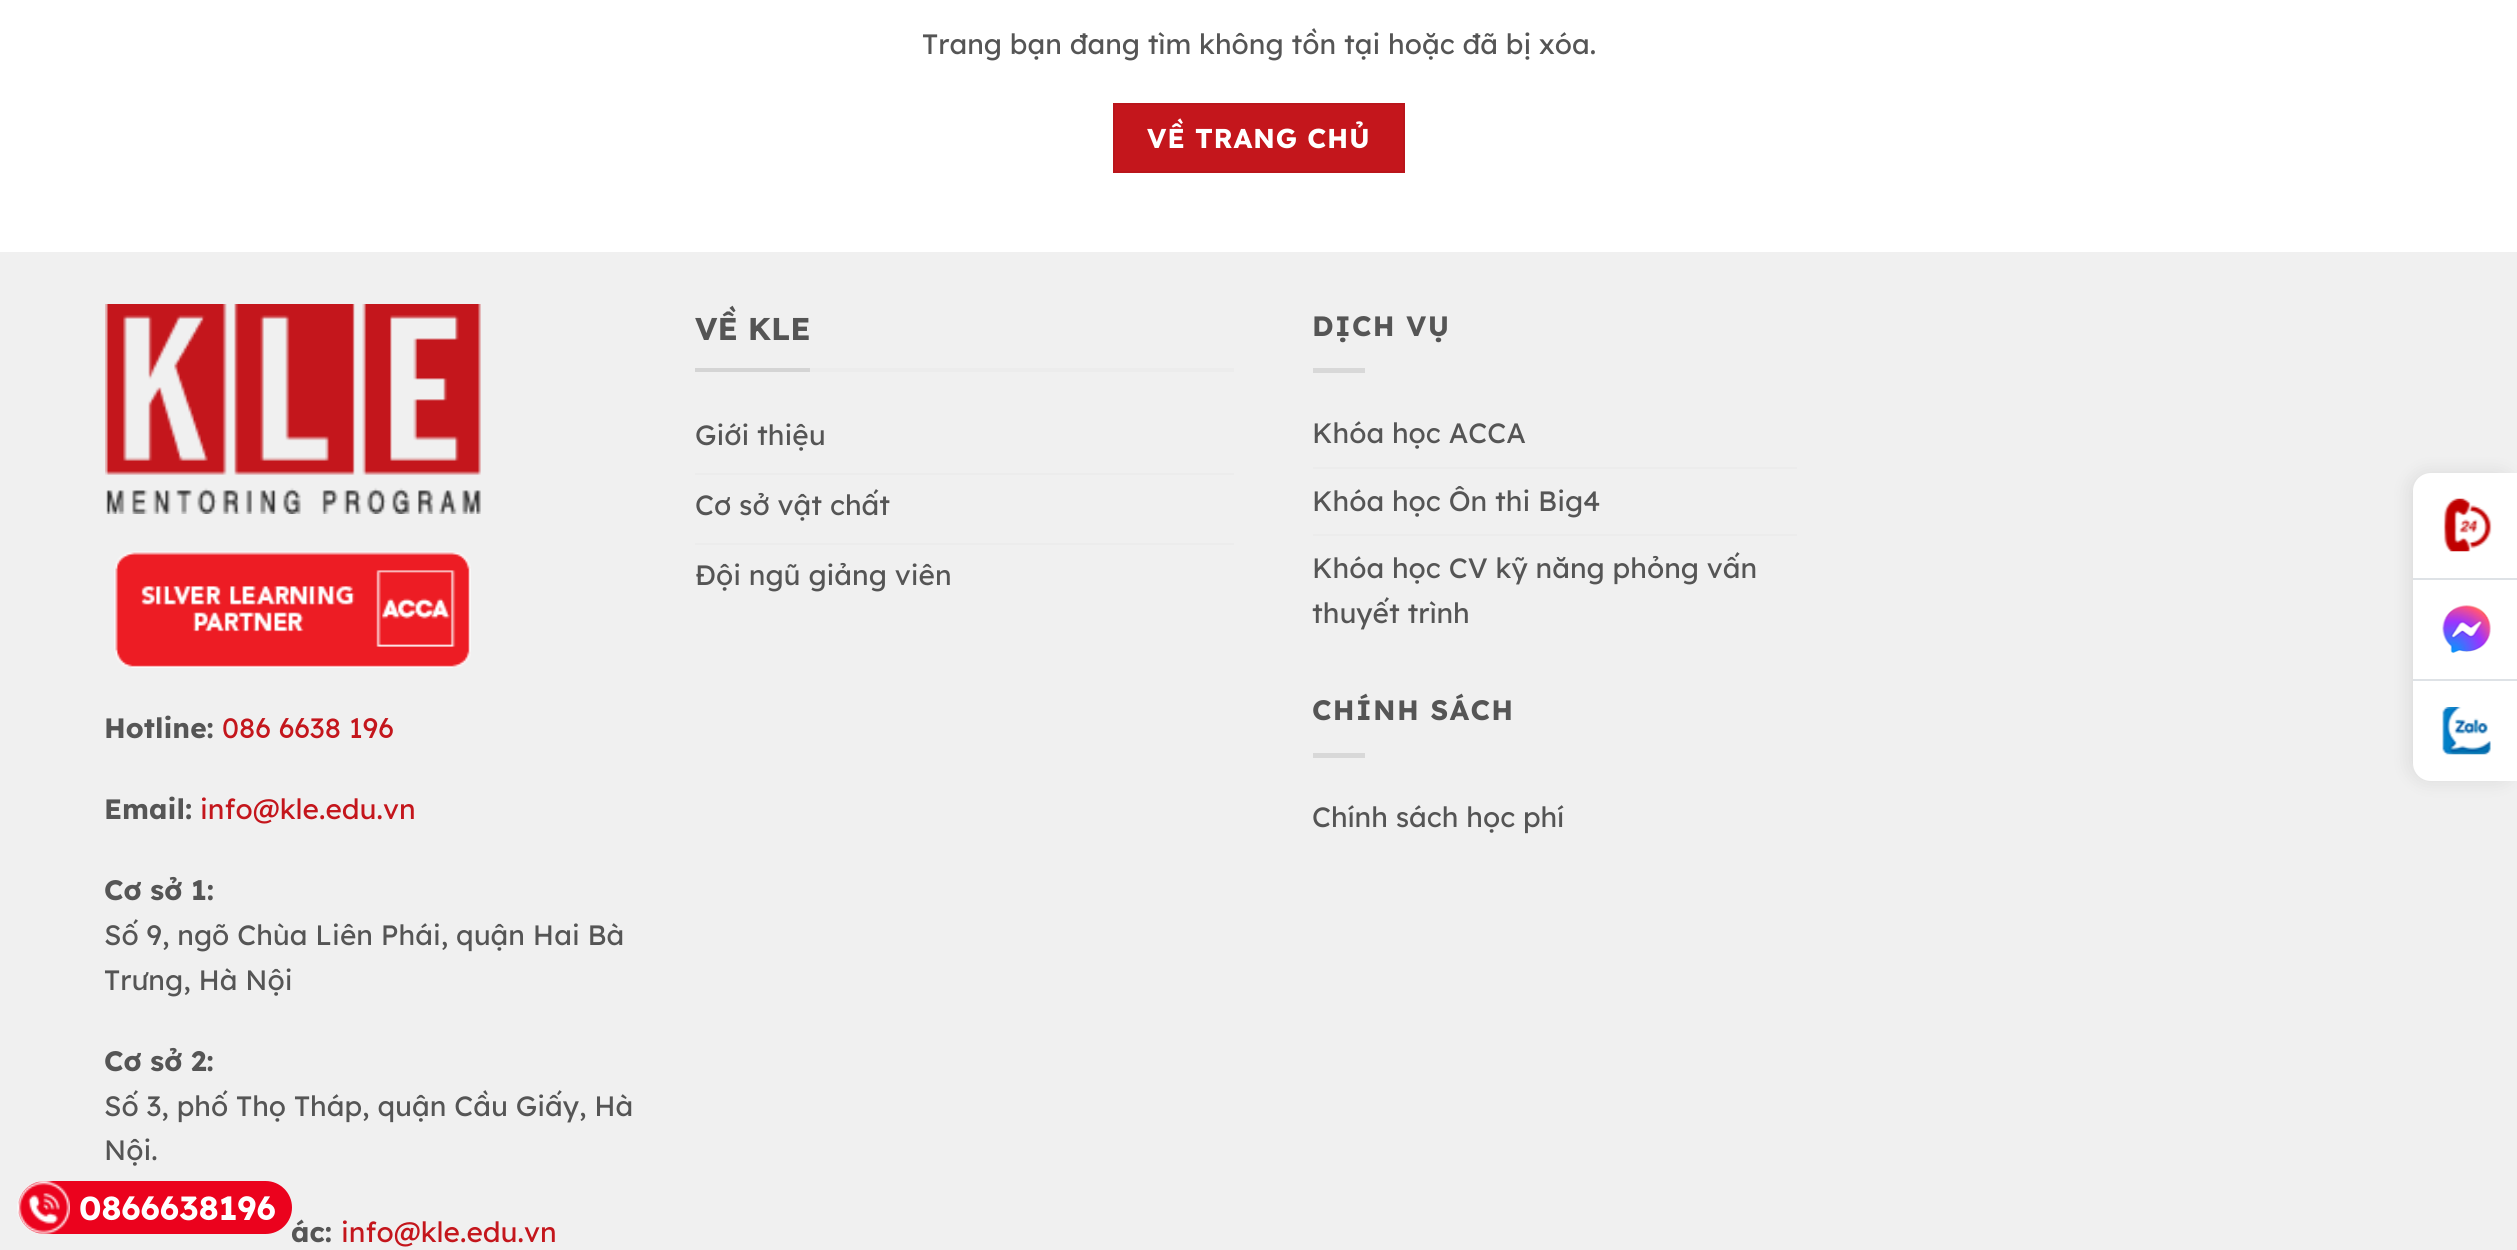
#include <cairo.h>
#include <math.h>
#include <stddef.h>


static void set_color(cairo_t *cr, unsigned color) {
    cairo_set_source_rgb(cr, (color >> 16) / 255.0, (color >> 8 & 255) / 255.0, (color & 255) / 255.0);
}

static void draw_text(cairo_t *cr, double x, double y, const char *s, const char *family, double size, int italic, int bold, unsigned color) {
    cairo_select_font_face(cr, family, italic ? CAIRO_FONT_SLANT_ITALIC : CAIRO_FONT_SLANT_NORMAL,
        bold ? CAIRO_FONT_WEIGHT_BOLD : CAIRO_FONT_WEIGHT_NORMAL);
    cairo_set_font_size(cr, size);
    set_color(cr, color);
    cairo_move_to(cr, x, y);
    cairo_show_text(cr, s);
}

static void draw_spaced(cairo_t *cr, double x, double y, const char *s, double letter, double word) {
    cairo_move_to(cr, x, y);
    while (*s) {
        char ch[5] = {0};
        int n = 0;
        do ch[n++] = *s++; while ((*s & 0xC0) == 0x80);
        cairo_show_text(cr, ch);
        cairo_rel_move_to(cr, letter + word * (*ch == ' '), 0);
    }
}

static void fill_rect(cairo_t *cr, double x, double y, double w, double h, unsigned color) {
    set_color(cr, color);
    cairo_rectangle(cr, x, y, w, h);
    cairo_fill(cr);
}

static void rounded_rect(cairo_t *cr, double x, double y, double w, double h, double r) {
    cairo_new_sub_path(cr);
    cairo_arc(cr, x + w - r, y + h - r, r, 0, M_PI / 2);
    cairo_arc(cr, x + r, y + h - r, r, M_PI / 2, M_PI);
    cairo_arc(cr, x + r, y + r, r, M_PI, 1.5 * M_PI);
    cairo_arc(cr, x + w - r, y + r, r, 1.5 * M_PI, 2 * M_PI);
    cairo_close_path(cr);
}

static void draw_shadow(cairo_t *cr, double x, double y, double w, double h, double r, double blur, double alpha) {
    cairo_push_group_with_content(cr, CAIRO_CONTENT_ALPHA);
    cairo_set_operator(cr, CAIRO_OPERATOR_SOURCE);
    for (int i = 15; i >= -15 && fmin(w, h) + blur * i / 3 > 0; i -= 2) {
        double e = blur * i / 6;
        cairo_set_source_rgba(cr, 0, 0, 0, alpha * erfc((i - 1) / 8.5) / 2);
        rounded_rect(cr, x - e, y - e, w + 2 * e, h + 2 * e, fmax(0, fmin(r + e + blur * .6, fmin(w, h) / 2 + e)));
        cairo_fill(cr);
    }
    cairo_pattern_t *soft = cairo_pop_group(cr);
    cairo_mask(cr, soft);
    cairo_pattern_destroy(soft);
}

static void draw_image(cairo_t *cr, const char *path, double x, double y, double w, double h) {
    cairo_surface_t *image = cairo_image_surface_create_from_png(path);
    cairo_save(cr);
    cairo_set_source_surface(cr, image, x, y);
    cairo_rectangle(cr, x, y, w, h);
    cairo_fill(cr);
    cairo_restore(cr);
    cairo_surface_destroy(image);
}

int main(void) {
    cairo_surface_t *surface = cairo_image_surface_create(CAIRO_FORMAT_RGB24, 2517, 1250);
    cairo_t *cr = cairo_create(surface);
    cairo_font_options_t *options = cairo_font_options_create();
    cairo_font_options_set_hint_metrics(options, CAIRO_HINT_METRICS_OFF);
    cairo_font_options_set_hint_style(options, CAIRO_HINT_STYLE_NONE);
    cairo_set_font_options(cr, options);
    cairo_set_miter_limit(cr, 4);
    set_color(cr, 0xFFFFFF);
    cairo_paint(cr);
    draw_text(cr, 922, 54, "Trang bạn đang tìm không tồn tại hoặc đã bị xóa.", "Lexend Deca", 28, 0, 0, 0x555555);
    set_color(cr, 0xC4161C);
    cairo_rectangle(cr, 1114, 104, 290, 68);
    cairo_fill_preserve(cr);
    set_color(cr, 0xBA151B);
    cairo_stroke(cr);
    cairo_select_font_face(cr, "Lexend Deca", CAIRO_FONT_SLANT_NORMAL, CAIRO_FONT_WEIGHT_BOLD);
    cairo_set_font_size(cr, 27.25);
    set_color(cr, 0xFFFFFF);
    draw_spaced(cr, 1147, 148, "VỀ TRANG CHỦ", 0.75, 0);
    fill_rect(cr, 0, 252, 2517, 998, 0xF0F0F0);
    fill_rect(cr, 810, 368, 424, 4, 0xECECEC);
    fill_rect(cr, 695, 368, 115, 4, 0xD4D4D4);
    draw_text(cr, 695, 340, "VỀ KLE", "Lexend Deca", 31.5, 0, 1, 0x555555);
    fill_rect(cr, 695, 473, 539, 2, 0xECECEC);
    draw_text(cr, 695, 445, "Giới thiệu", "Lexend Deca", 28, 0, 0, 0x555555);
    fill_rect(cr, 695, 543, 539, 2, 0xECECEC);
    draw_text(cr, 695, 515, "Cơ sở vật chất", "Lexend Deca", 28, 0, 0, 0x555555);
    draw_text(cr, 695, 585, "Đội ngũ giảng viên", "Lexend Deca", 28, 0, 0, 0x555555);
    cairo_select_font_face(cr, "Lexend Deca", CAIRO_FONT_SLANT_NORMAL, CAIRO_FONT_WEIGHT_BOLD);
    draw_spaced(cr, 1312, 336, "DỊCH VỤ", 1.4, 0);
    fill_rect(cr, 1313, 368, 52, 5, 0xD8D8D8);
    draw_text(cr, 1312, 443, "Khóa học ACCA", "Lexend Deca", 28, 0, 0, 0x555555);
    fill_rect(cr, 1313, 467, 484, 2, 0xECECEC);
    draw_text(cr, 1312, 511, "Khóa học Ôn thi Big4", "Lexend Deca", 28, 0, 0, 0x555555);
    fill_rect(cr, 1313, 534, 484, 2, 0xECECEC);
    draw_text(cr, 1312, 578, "Khóa học CV kỹ năng phỏng vấn", "Lexend Deca", 28, 0, 0, 0x555555);
    draw_text(cr, 1312, 623, "thuyết trình", "Lexend Deca", 28, 0, 0, 0x555555);
    cairo_select_font_face(cr, "Lexend Deca", CAIRO_FONT_SLANT_NORMAL, CAIRO_FONT_WEIGHT_BOLD);
    draw_spaced(cr, 1312, 720, "CHÍNH SÁCH", 1.4, 0);
    fill_rect(cr, 1313, 753, 52, 5, 0xD8D8D8);
    draw_text(cr, 1312, 827, "Chính sách học phí", "Lexend Deca", 28, 0, 0, 0x555555);
    draw_image(cr, "assets/img1.png", 105, 304, 376, 210);
    draw_image(cr, "assets/img2.png", 114, 551, 357, 117);
    draw_text(cr, 104, 738, "Hotline:", "Lexend Deca", 28, 0, 1, 0x555555);
    draw_text(cr, 222, 738, "086 6638 196", "Lexend Deca", 28, 0, 0, 0xC4161C);
    draw_text(cr, 104, 819, "Email:", "Lexend Deca", 28, 0, 1, 0x555555);
    draw_text(cr, 200, 819, "info@kle.edu.vn", "Lexend Deca", 28, 0, 0, 0xC4161C);
    draw_text(cr, 104, 900, "Cơ sở 1:", "Lexend Deca", 28, 0, 1, 0x555555);
    draw_text(cr, 104, 945, "Số 9, ngõ Chùa Liên Phái, quận Hai Bà", "Lexend Deca", 28, 0, 0, 0x555555);
    draw_text(cr, 104, 990, "Trưng, Hà Nội", "Lexend Deca", 28, 0, 0, 0x555555);
    draw_text(cr, 104, 1071, "Cơ sở 2:", "Lexend Deca", 28, 0, 1, 0x555555);
    draw_text(cr, 104, 1116, "Số 3, phố Thọ Tháp, quận Cầu Giấy, Hà", "Lexend Deca", 28, 0, 0, 0x555555);
    draw_text(cr, 104, 1160, "Nội.", "Lexend Deca", 28, 0, 0, 0x555555);
    draw_text(cr, 291, 1242, "ác:", "Lexend Deca", 28, 0, 1, 0x555555);
    draw_text(cr, 341, 1242, "info@kle.edu.vn", "Lexend Deca", 28, 0, 0, 0xC4161C);
    set_color(cr, 0x000000);
    draw_shadow(cr, 2410, 473, 105, 308, 18, 9, 0.1);
    set_color(cr, 0xFFFFFF);
    cairo_new_path(cr);
    cairo_move_to(cr, 2431, 473);
    cairo_line_to(cr, 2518, 473);
    cairo_line_to(cr, 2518, 781);
    cairo_line_to(cr, 2431, 781);
    cairo_curve_to(cr, 2421, 781, 2413, 773, 2413, 763);
    cairo_line_to(cr, 2413, 491);
    cairo_curve_to(cr, 2413, 481, 2421, 473, 2431, 473);
    cairo_close_path(cr);
    cairo_fill(cr);
    fill_rect(cr, 2413, 578, 104, 2, 0xDEE2E6);
    draw_image(cr, "assets/img3.png", 2443, 498, 49, 54);
    fill_rect(cr, 2413, 679, 104, 2, 0xDEE2E6);
    draw_image(cr, "assets/img4.png", 2442, 605, 49, 48);
    draw_image(cr, "assets/img5.png", 2442, 707, 49, 48);
    set_color(cr, 0xEB021D);
    rounded_rect(cr, 18, 1181, 274, 53, 26.5);
    cairo_fill(cr);
    draw_image(cr, "assets/img6.png", 17, 1181, 53, 53);
    draw_text(cr, 79, 1220, "0866638196", "Lexend Deca", 33.25, 0, 1, 0xFFFFFF);
    cairo_surface_write_to_png(surface, "output.png");
    cairo_font_options_destroy(options);
    cairo_destroy(cr);
    cairo_surface_destroy(surface);
    return 0;
}
